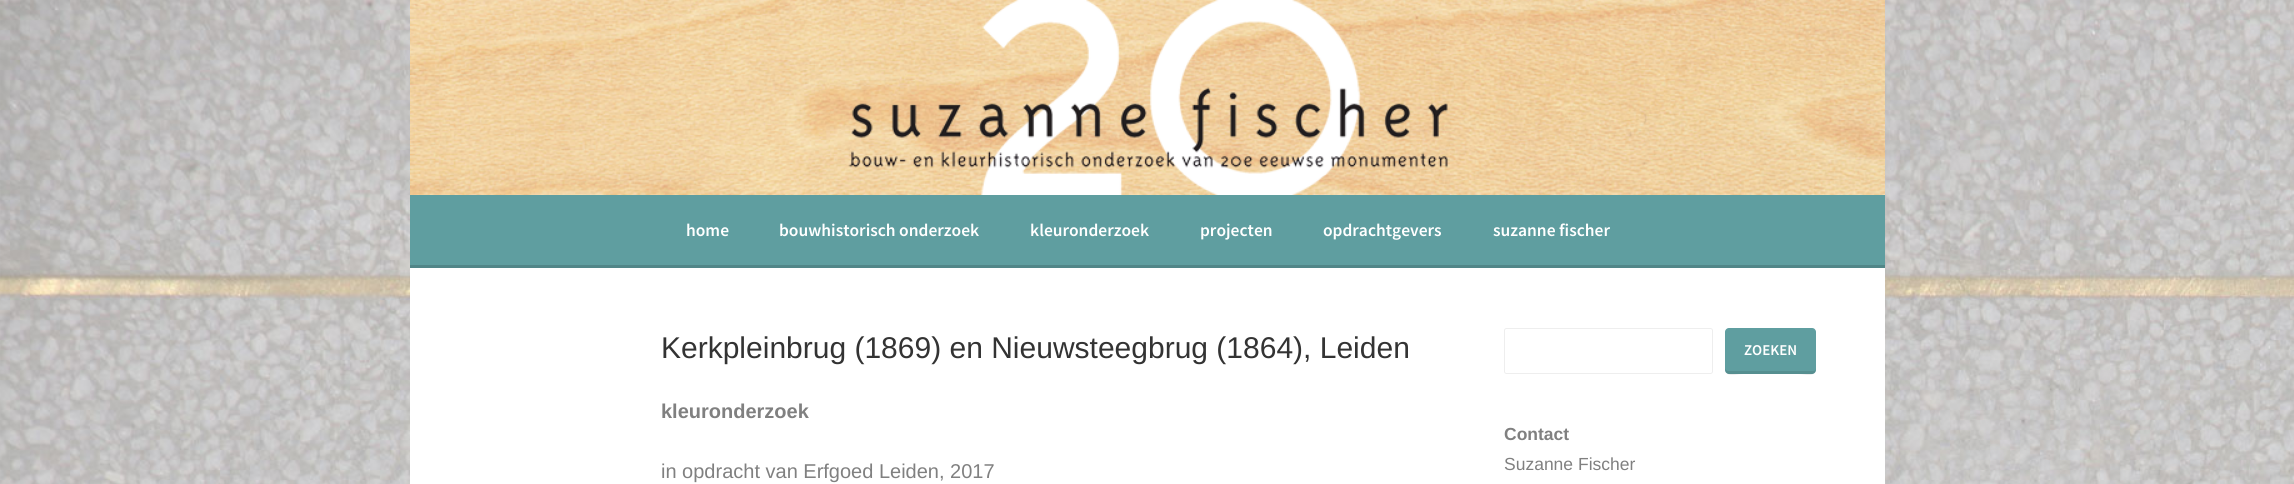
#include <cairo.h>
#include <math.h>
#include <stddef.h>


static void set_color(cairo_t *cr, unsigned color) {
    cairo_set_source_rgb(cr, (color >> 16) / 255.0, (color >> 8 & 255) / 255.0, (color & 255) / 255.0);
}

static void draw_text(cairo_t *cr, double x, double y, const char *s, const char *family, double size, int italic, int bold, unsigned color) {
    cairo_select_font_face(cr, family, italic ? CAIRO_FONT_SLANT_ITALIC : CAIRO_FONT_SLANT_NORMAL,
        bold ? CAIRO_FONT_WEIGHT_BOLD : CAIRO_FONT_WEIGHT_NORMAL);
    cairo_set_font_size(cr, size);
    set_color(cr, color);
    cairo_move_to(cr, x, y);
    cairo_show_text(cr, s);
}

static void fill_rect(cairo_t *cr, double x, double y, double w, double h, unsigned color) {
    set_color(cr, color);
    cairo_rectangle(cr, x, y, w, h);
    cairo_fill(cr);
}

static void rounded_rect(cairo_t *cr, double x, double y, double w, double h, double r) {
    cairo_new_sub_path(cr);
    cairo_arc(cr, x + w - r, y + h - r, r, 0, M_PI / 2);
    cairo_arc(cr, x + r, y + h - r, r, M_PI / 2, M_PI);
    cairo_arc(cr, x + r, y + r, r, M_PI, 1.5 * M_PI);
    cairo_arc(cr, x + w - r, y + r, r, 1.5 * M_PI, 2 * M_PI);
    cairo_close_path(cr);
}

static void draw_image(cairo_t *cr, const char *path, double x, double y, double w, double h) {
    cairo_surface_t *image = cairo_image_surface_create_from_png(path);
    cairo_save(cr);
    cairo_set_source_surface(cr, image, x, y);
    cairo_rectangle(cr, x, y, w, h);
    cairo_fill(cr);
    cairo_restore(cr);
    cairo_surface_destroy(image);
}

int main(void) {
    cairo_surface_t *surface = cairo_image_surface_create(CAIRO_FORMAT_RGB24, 2294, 484);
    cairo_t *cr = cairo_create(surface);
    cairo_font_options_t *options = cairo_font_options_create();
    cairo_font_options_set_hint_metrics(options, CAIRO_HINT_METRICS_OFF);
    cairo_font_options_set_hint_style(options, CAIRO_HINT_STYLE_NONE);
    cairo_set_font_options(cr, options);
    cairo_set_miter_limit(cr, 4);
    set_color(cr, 0xFFFFFF);
    cairo_paint(cr);
    draw_image(cr, "assets/img1.png", 0, 0, 2294, 484);
    draw_image(cr, "assets/img2.png", 410, 0, 1475, 195);
    fill_rect(cr, 410, 195, 1475, 70, 0x5F9EA0);
    fill_rect(cr, 410, 265, 1475, 3, 0x518688);
    draw_text(cr, 686, 236, "home", "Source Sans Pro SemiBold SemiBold", 17.5, 0, 0, 0xFFFFFF);
    draw_text(cr, 779, 236, "bouwhistorisch onderzoek", "Source Sans Pro SemiBold SemiBold", 17.5, 0, 0, 0xFFFFFF);
    draw_text(cr, 1030, 236, "kleuronderzoek", "Source Sans Pro SemiBold SemiBold", 17.5, 0, 0, 0xFFFFFF);
    draw_text(cr, 1200, 236, "projecten", "Source Sans Pro SemiBold SemiBold", 17.5, 0, 0, 0xFFFFFF);
    draw_text(cr, 1323, 236, "opdrachtgevers", "Source Sans Pro SemiBold SemiBold", 17.5, 0, 0, 0xFFFFFF);
    draw_text(cr, 1493, 236, "suzanne fischer", "Source Sans Pro SemiBold SemiBold", 17.5, 0, 0, 0xFFFFFF);
    fill_rect(cr, 410, 268, 1475, 216, 0xFFFFFF);
    draw_text(cr, 661, 358, "Kerkpleinbrug (1869) en Nieuwsteegbrug (1864), Leiden", "Liberation Sans", 30, 0, 0, 0x333333);
    draw_text(cr, 661, 418, "kleuronderzoek", "Liberation Sans", 20, 0, 1, 0x808080);
    draw_text(cr, 661, 478, "in opdracht van Erfgoed Leiden, 2017", "Liberation Sans", 20, 0, 0, 0x808080);
    rounded_rect(cr, 1504.5, 328.5, 208, 45, 2);
    set_color(cr, 0xEEEEEE);
    cairo_set_line_width(cr, 1);
    cairo_stroke(cr);
    set_color(cr, 0x5F9EA0);
    rounded_rect(cr, 1725, 328, 91, 46, 4);
    cairo_fill(cr);
    cairo_set_source_rgba(cr, 0, 0, 0, 0.1);
    cairo_new_path(cr);
    cairo_move_to(cr, 1725, 368);
    cairo_curve_to(cr, 1725, 378, 1735, 374, 1743, 374);
    cairo_line_to(cr, 1798, 374);
    cairo_curve_to(cr, 1806, 374, 1816, 378, 1816, 368);
    cairo_curve_to(cr, 1816, 370, 1815, 371, 1812, 371);
    cairo_line_to(cr, 1729, 371);
    cairo_curve_to(cr, 1727, 371, 1725, 370, 1725, 368);
    cairo_close_path(cr);
    cairo_fill(cr);
    draw_text(cr, 1744, 355, "ZOEKEN", "Source Sans Pro SemiBold SemiBold", 15, 0, 0, 0xFFFFFF);
    draw_text(cr, 1504, 440, "Contact", "Liberation Sans", 17.5, 0, 1, 0x808080);
    draw_text(cr, 1504, 470, "Suzanne Fischer", "Liberation Sans", 17.5, 0, 0, 0x808080);
    cairo_surface_write_to_png(surface, "output.png");
    cairo_font_options_destroy(options);
    cairo_destroy(cr);
    cairo_surface_destroy(surface);
    return 0;
}
